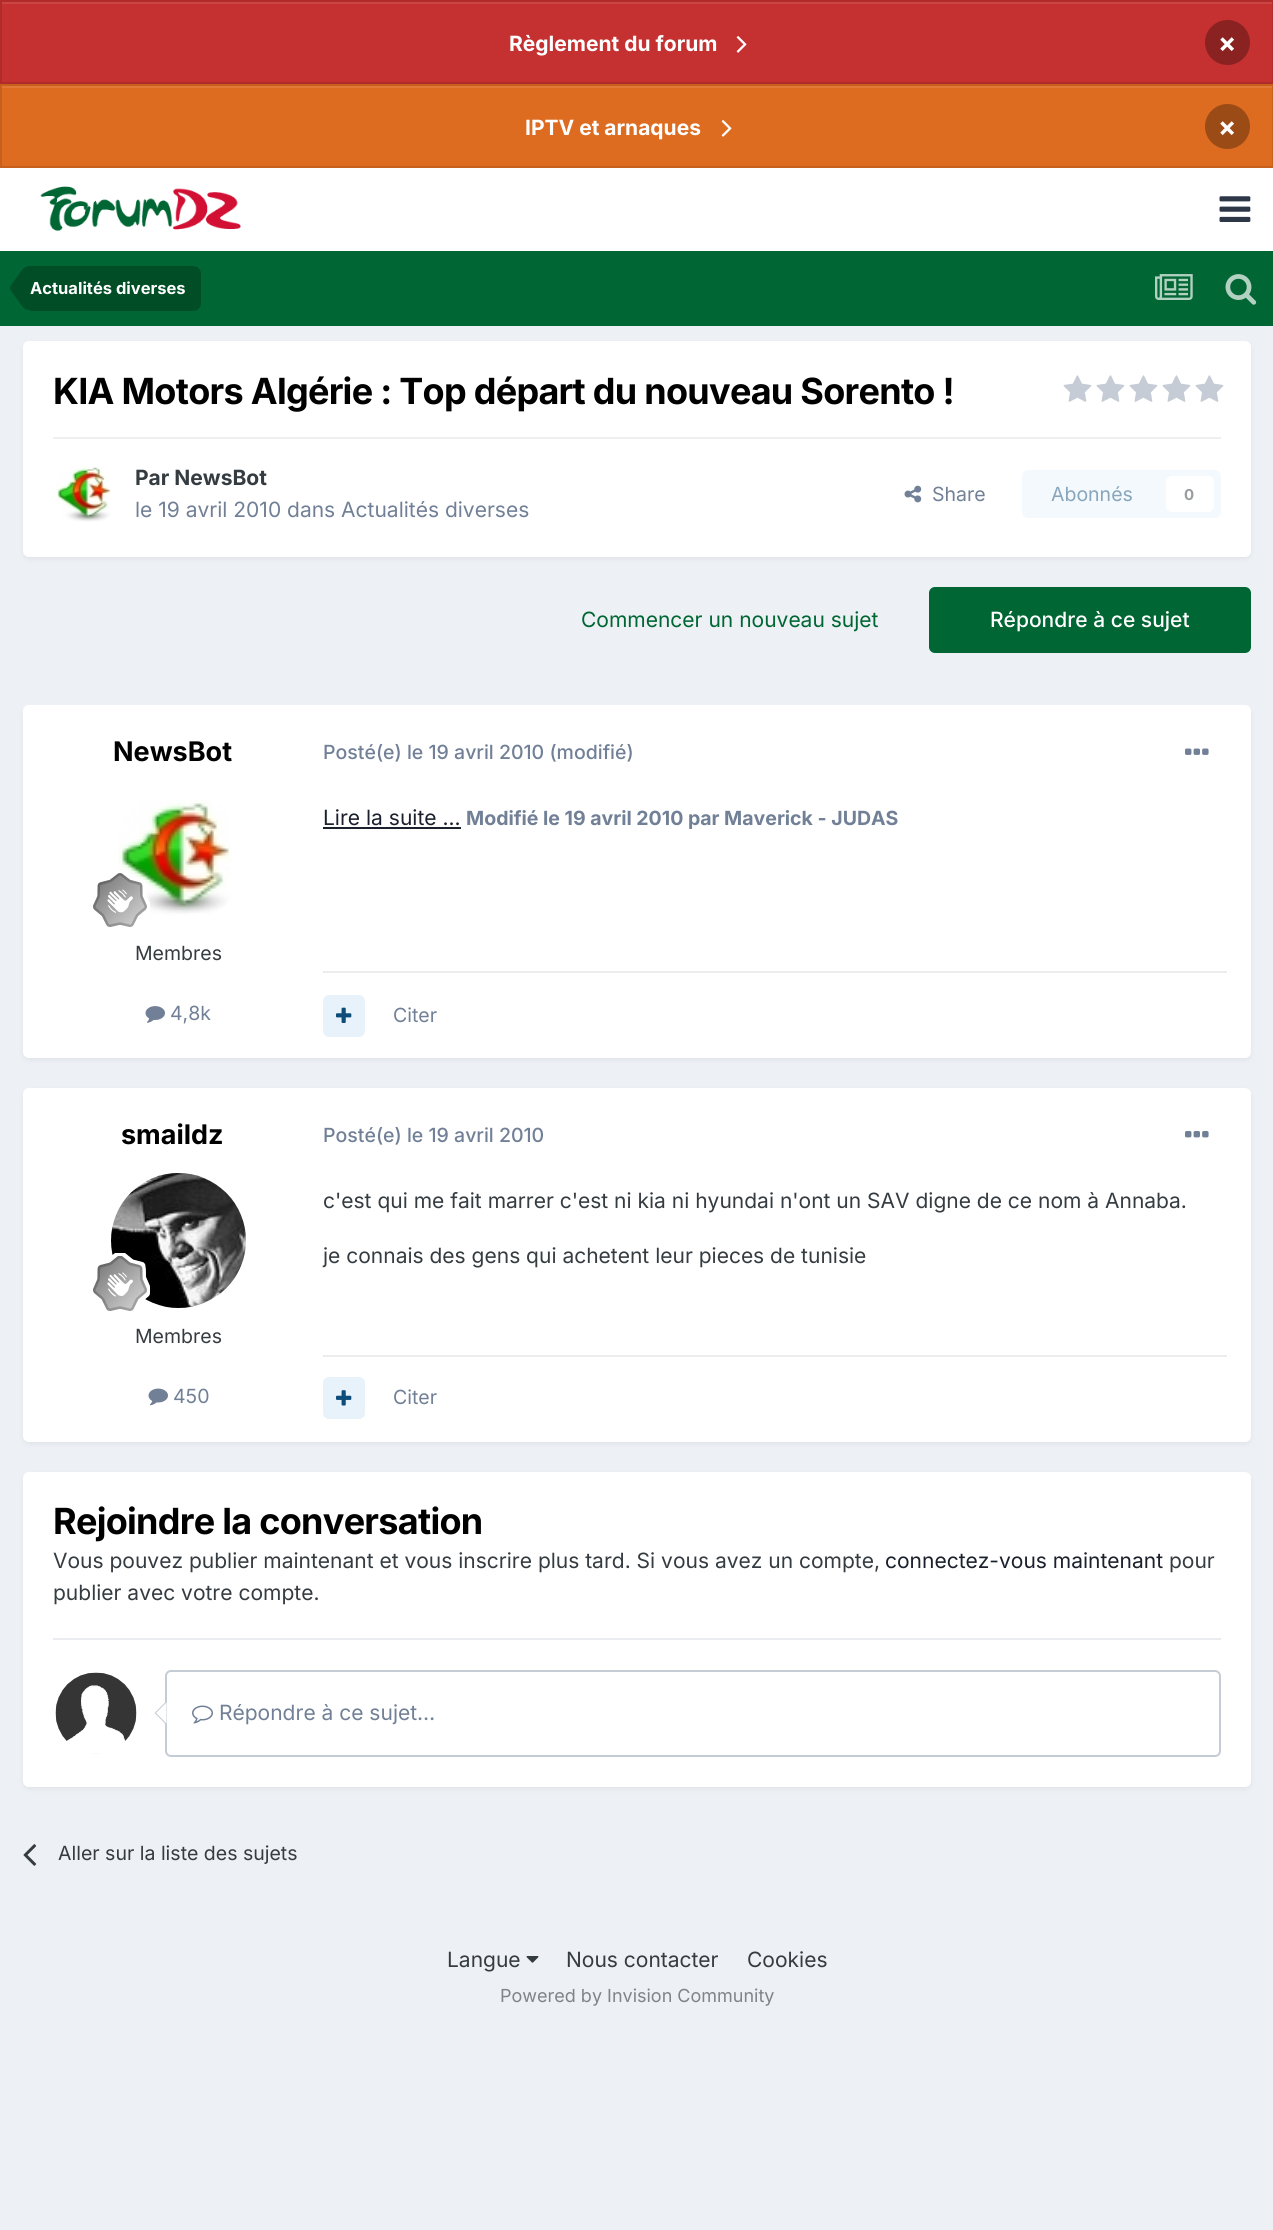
#include <cairo.h>
#include <math.h>
#include <stddef.h>


static void set_color(cairo_t *cr, unsigned color) {
    cairo_set_source_rgb(cr, (color >> 16) / 255.0, (color >> 8 & 255) / 255.0, (color & 255) / 255.0);
}

static void draw_text(cairo_t *cr, double x, double y, const char *s, const char *family, double size, int italic, int bold, unsigned color) {
    cairo_select_font_face(cr, family, italic ? CAIRO_FONT_SLANT_ITALIC : CAIRO_FONT_SLANT_NORMAL,
        bold ? CAIRO_FONT_WEIGHT_BOLD : CAIRO_FONT_WEIGHT_NORMAL);
    cairo_set_font_size(cr, size);
    set_color(cr, color);
    cairo_move_to(cr, x, y);
    cairo_show_text(cr, s);
}

static void draw_spaced(cairo_t *cr, double x, double y, const char *s, double letter, double word) {
    cairo_move_to(cr, x, y);
    while (*s) {
        char ch[5] = {0};
        int n = 0;
        do ch[n++] = *s++; while ((*s & 0xC0) == 0x80);
        cairo_show_text(cr, ch);
        cairo_rel_move_to(cr, letter + word * (*ch == ' '), 0);
    }
}

static void fill_rect(cairo_t *cr, double x, double y, double w, double h, unsigned color) {
    set_color(cr, color);
    cairo_rectangle(cr, x, y, w, h);
    cairo_fill(cr);
}

static void rounded_rect(cairo_t *cr, double x, double y, double w, double h, double r) {
    cairo_new_sub_path(cr);
    cairo_arc(cr, x + w - r, y + h - r, r, 0, M_PI / 2);
    cairo_arc(cr, x + r, y + h - r, r, M_PI / 2, M_PI);
    cairo_arc(cr, x + r, y + r, r, M_PI, 1.5 * M_PI);
    cairo_arc(cr, x + w - r, y + r, r, 1.5 * M_PI, 2 * M_PI);
    cairo_close_path(cr);
}

static void draw_shadow(cairo_t *cr, double x, double y, double w, double h, double r, double blur, double alpha) {
    cairo_push_group_with_content(cr, CAIRO_CONTENT_ALPHA);
    cairo_set_operator(cr, CAIRO_OPERATOR_SOURCE);
    for (int i = 15; i >= -15 && fmin(w, h) + blur * i / 3 > 0; i -= 2) {
        double e = blur * i / 6;
        cairo_set_source_rgba(cr, 0, 0, 0, alpha * erfc((i - 1) / 8.5) / 2);
        rounded_rect(cr, x - e, y - e, w + 2 * e, h + 2 * e, fmax(0, fmin(r + e + blur * .6, fmin(w, h) / 2 + e)));
        cairo_fill(cr);
    }
    cairo_pattern_t *soft = cairo_pop_group(cr);
    cairo_mask(cr, soft);
    cairo_pattern_destroy(soft);
}

static void draw_image(cairo_t *cr, const char *path, double x, double y, double w, double h) {
    cairo_surface_t *image = cairo_image_surface_create_from_png(path);
    cairo_save(cr);
    cairo_set_source_surface(cr, image, x, y);
    cairo_rectangle(cr, x, y, w, h);
    cairo_fill(cr);
    cairo_restore(cr);
    cairo_surface_destroy(image);
}

int main(void) {
    cairo_surface_t *surface = cairo_image_surface_create(CAIRO_FORMAT_RGB24, 1273, 2230);
    cairo_t *cr = cairo_create(surface);
    cairo_font_options_t *options = cairo_font_options_create();
    cairo_font_options_set_hint_metrics(options, CAIRO_HINT_METRICS_OFF);
    cairo_font_options_set_hint_style(options, CAIRO_HINT_STYLE_NONE);
    cairo_set_font_options(cr, options);
    cairo_set_miter_limit(cr, 4);
    set_color(cr, 0xEDF0F4);
    cairo_paint(cr);
    fill_rect(cr, 2, 4, 1270, 78, 0xC53030);
    fill_rect(cr, 2, 2, 1270, 2, 0xCB4545);
    cairo_rectangle(cr, 1, 1, 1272, 82);
    set_color(cr, 0xB12B2B);
    cairo_stroke(cr);
    draw_text(cr, 509, 51, "Règlement du forum", "Inter", 21, 0, 1, 0xFFFFFF);
    draw_image(cr, "assets/img1.png", 736, 36, 11, 17);
    set_color(cr, 0x8A2222);
    cairo_arc(cr, 1227.5, 42.5, 22.5, 0, 2 * M_PI);
    cairo_fill(cr);
    draw_text(cr, 1218, 52, "×", "Inter", 27, 0, 1, 0xFFFFFF);
    fill_rect(cr, 2, 88, 1270, 78, 0xDD6B20);
    fill_rect(cr, 2, 86, 1270, 2, 0xE07A36);
    cairo_rectangle(cr, 1, 85, 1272, 82);
    set_color(cr, 0xC7601D);
    cairo_stroke(cr);
    draw_text(cr, 525, 135, "IPTV et arnaques", "Inter", 21, 0, 1, 0xFFFFFF);
    draw_image(cr, "assets/img2.png", 721, 120, 11, 17);
    set_color(cr, 0x9B4B16);
    cairo_arc(cr, 1227.5, 126.5, 22.5, 0, 2 * M_PI);
    cairo_fill(cr);
    draw_text(cr, 1218, 136, "×", "Inter", 27, 0, 1, 0xFFFFFF);
    fill_rect(cr, 0, 168, 1273, 83, 0xFFFFFF);
    draw_image(cr, "assets/img3.png", 40, 186, 201, 45);
    draw_image(cr, "assets/img4.png", 1219, 196, 32, 26);
    fill_rect(cr, 0, 251, 1273, 75, 0x006633);
    set_color(cr, 0x004D26);
    cairo_new_path(cr);
    cairo_move_to(cr, 30, 266);
    cairo_line_to(cr, 193, 266);
    cairo_curve_to(cr, 197.5, 266, 201, 269.5, 201, 274);
    cairo_line_to(cr, 201, 303);
    cairo_curve_to(cr, 201, 307.5, 197.5, 311, 193, 311);
    cairo_line_to(cr, 30, 311);
    cairo_close_path(cr);
    cairo_fill(cr);
    cairo_new_path(cr);
    cairo_move_to(cr, 30, 288);
    cairo_line_to(cr, 30, 310);
    cairo_curve_to(cr, 27, 310, 24.5, 309, 22, 306);
    cairo_line_to(cr, 10.5, 290);
    cairo_line_to(cr, 10, 288);
    cairo_close_path(cr);
    cairo_move_to(cr, 30, 288);
    cairo_line_to(cr, 10, 288);
    cairo_line_to(cr, 10.5, 286);
    cairo_line_to(cr, 22, 270);
    cairo_curve_to(cr, 24.5, 267, 27, 266, 30, 266);
    cairo_close_path(cr);
    cairo_fill(cr);
    draw_text(cr, 30, 294, "Actualités diverses", "Inter", 16.5, 0, 1, 0xFFFFFF);
    draw_image(cr, "assets/img5.png", 1155, 274, 38, 26);
    draw_image(cr, "assets/img6.png", 1225, 274, 32, 31);
    set_color(cr, 0x2D3748);
    draw_shadow(cr, 24, 345, 1226, 213, 5, 3, 0.1);
    set_color(cr, 0xFFFFFF);
    rounded_rect(cr, 23, 341, 1228, 216, 6);
    cairo_fill(cr);
    cairo_set_font_size(cr, 36);
    set_color(cr, 0x000000);
    draw_spaced(cr, 53, 404, "KIA Motors Algérie : Top départ du nouveau Sorento !", -0.72, 0);
    draw_image(cr, "assets/img7.png", 1063, 375, 29, 27);
    draw_image(cr, "assets/img7.png", 1096, 375, 29, 27);
    draw_image(cr, "assets/img7.png", 1129, 375, 29, 27);
    draw_image(cr, "assets/img7.png", 1162, 375, 29, 27);
    draw_image(cr, "assets/img7.png", 1195, 375, 29, 27);
    fill_rect(cr, 53, 437, 1168, 2, 0xEFEFF0);
    draw_image(cr, "assets/img8.png", 56, 466, 55, 56);
    draw_text(cr, 135, 485, "Par NewsBot", "Inter", 21, 0, 1, 0x353C41);
    draw_text(cr, 135, 517, "le 19 avril 2010 dans Actualités diverses", "Inter", 21, 0, 0, 0x718096);
    draw_image(cr, "assets/img9.png", 904, 485, 18, 18);
    draw_text(cr, 932, 501, "Share", "Inter", 19.5, 0, 0, 0x718096);
    set_color(cr, 0xF4F9FD);
    rounded_rect(cr, 1022, 470, 199, 48, 6);
    cairo_fill(cr);
    draw_text(cr, 1051, 501, "Abonnés", "Inter", 19.5, 0, 0, 0x87A6BC);
    set_color(cr, 0xFFFFFF);
    rounded_rect(cr, 1166, 476, 48, 36, 6);
    cairo_fill(cr);
    draw_text(cr, 1184, 500, "0", "Inter", 15, 0, 1, 0x9A9EA0);
    draw_text(cr, 581, 627, "Commencer un nouveau sujet", "Inter", 21, 0, 0, 0x006633);
    rounded_rect(cr, 929, 587, 322, 66, 6);
    cairo_fill(cr);
    draw_text(cr, 990, 627, "Répondre à ce sujet", "Inter Medium", 21, 0, 0, 0xFFFFFF);
    set_color(cr, 0x2D3748);
    draw_shadow(cr, 24, 710, 1226, 349, 5, 3, 0.1);
    set_color(cr, 0xFFFFFF);
    rounded_rect(cr, 23, 705, 1228, 353, 6);
    cairo_fill(cr);
    draw_text(cr, 113, 761, "NewsBot", "Inter", 27, 0, 1, 0x000000);
    draw_image(cr, "assets/img10.png", 118, 800, 113, 115);
    draw_image(cr, "assets/img11.png", 93, 873, 57, 54);
    draw_text(cr, 135, 960, "Membres", "Inter", 19.5, 0, 0, 0x353C41);
    draw_image(cr, "assets/img12.png", 145, 1006, 20, 17);
    draw_text(cr, 170, 1020, "4,8k", "Inter", 19.5, 0, 0, 0x718096);
    draw_text(cr, 323, 759, "Posté(e) le 19 avril 2010 (modifié)", "Inter Medium", 19.5, 0, 0, 0x718096);
    draw_image(cr, "assets/img13.png", 1185, 748, 24, 7);
    draw_text(cr, 323, 825, "Lire la suite ...", "Inter", 21, 0, 0, 0x1A202C);
    fill_rect(cr, 323, 827, 138, 2, 0x1A202C);
    draw_text(cr, 466, 825, "Modifié le 19 avril 2010 par Maverick - JUDAS", "Inter", 19.5, 0, 1, 0x718096);
    fill_rect(cr, 323, 971, 904, 2, 0xEBECEC);
    set_color(cr, 0xE8F2FA);
    rounded_rect(cr, 323, 995, 42, 42, 6);
    cairo_fill(cr);
    draw_image(cr, "assets/img14.png", 336, 1007, 16, 16);
    draw_text(cr, 393, 1022, "Citer", "Inter", 19.5, 0, 0, 0x718096);
    set_color(cr, 0x2D3748);
    draw_shadow(cr, 24, 1092, 1226, 351, 5, 3, 0.1);
    set_color(cr, 0xFFFFFF);
    rounded_rect(cr, 23, 1088, 1228, 354, 6);
    cairo_fill(cr);
    draw_text(cr, 121, 1144, "smaildz", "Inter", 27, 0, 1, 0x000000);
    draw_image(cr, "assets/img15.png", 111, 1173, 135, 135);
    draw_image(cr, "assets/img16.png", 93, 1253, 57, 58);
    draw_text(cr, 135, 1343, "Membres", "Inter", 19.5, 0, 0, 0x353C41);
    draw_image(cr, "assets/img17.png", 148, 1388, 20, 18);
    draw_text(cr, 173, 1403, "450", "Inter", 19.5, 0, 0, 0x718096);
    draw_text(cr, 323, 1142, "Posté(e) le 19 avril 2010", "Inter Medium", 19.5, 0, 0, 0x718096);
    draw_image(cr, "assets/img18.png", 1185, 1131, 24, 7);
    draw_text(cr, 323, 1208, "c'est qui me fait marrer c'est ni kia ni hyundai n'ont un SAV digne de ce nom à Annaba.", "Inter", 21, 0, 0, 0x353C41);
    draw_text(cr, 323, 1263, "je connais des gens qui achetent leur pieces de tunisie", "Inter", 21, 0, 0, 0x353C41);
    fill_rect(cr, 323, 1355, 904, 2, 0xEBECEC);
    set_color(cr, 0xE8F2FA);
    rounded_rect(cr, 323, 1377, 42, 42, 6);
    cairo_fill(cr);
    draw_image(cr, "assets/img19.png", 336, 1390, 16, 16);
    draw_text(cr, 393, 1404, "Citer", "Inter", 19.5, 0, 0, 0x718096);
    set_color(cr, 0x2D3748);
    draw_shadow(cr, 24, 1476, 1226, 312, 5, 3, 0.1);
    set_color(cr, 0xFFFFFF);
    rounded_rect(cr, 23, 1472, 1228, 315, 6);
    cairo_fill(cr);
    fill_rect(cr, 53, 1638, 1168, 2, 0xEAECEF);
    cairo_select_font_face(cr, "Inter", CAIRO_FONT_SLANT_NORMAL, CAIRO_FONT_WEIGHT_BOLD);
    cairo_set_font_size(cr, 36);
    set_color(cr, 0x000000);
    draw_spaced(cr, 53, 1534, "Rejoindre la conversation", -0.72, 0);
    draw_text(cr, 53, 1568, "Vous pouvez publier maintenant et vous inscrire plus tard. Si vous avez un compte,", "Inter", 21, 0, 0, 0x353C41);
    draw_text(cr, 885, 1568, "connectez-vous maintenant", "Inter", 21, 0, 0, 0x1A202C);
    draw_text(cr, 1169, 1568, "pour", "Inter", 21, 0, 0, 0x353C41);
    draw_text(cr, 53, 1600, "publier avec votre compte.", "Inter", 21, 0, 0, 0x353C41);
    draw_image(cr, "assets/img20.png", 55, 1672, 82, 82);
    rounded_rect(cr, 166, 1671, 1054, 85, 5);
    set_color(cr, 0xC6CCD5);
    cairo_stroke(cr);
    cairo_new_path(cr);
    cairo_move_to(cr, 165, 1702.5);
    cairo_line_to(cr, 165, 1723.5);
    cairo_line_to(cr, 154.5, 1713);
    cairo_close_path(cr);
    cairo_fill(cr);
    set_color(cr, 0xFFFFFF);
    cairo_new_path(cr);
    cairo_move_to(cr, 166.5, 1702.5);
    cairo_line_to(cr, 166.5, 1723.5);
    cairo_line_to(cr, 156, 1713);
    cairo_close_path(cr);
    cairo_fill(cr);
    draw_image(cr, "assets/img21.png", 192, 1705, 21, 19);
    draw_text(cr, 219, 1720, "Répondre à ce sujet…", "Inter", 21, 0, 0, 0x718096);
    draw_image(cr, "assets/img22.png", 23, 1844, 14, 22);
    draw_text(cr, 58, 1860, "Aller sur la liste des sujets", "Inter", 19.5, 0, 0, 0x353C41);
    draw_text(cr, 447, 1967, "Langue", "Inter", 21, 0, 0, 0x353C41);
    draw_image(cr, "assets/img23.png", 526, 1956, 13, 7);
    draw_text(cr, 566, 1967, "Nous contacter", "Inter", 21, 0, 0, 0x353C41);
    draw_text(cr, 747, 1967, "Cookies", "Inter", 21, 0, 0, 0x353C41);
    draw_text(cr, 500, 2002, "Powered by Invision Community", "Inter", 18, 0, 0, 0x7F8489);
    cairo_surface_write_to_png(surface, "output.png");
    cairo_font_options_destroy(options);
    cairo_destroy(cr);
    cairo_surface_destroy(surface);
    return 0;
}
